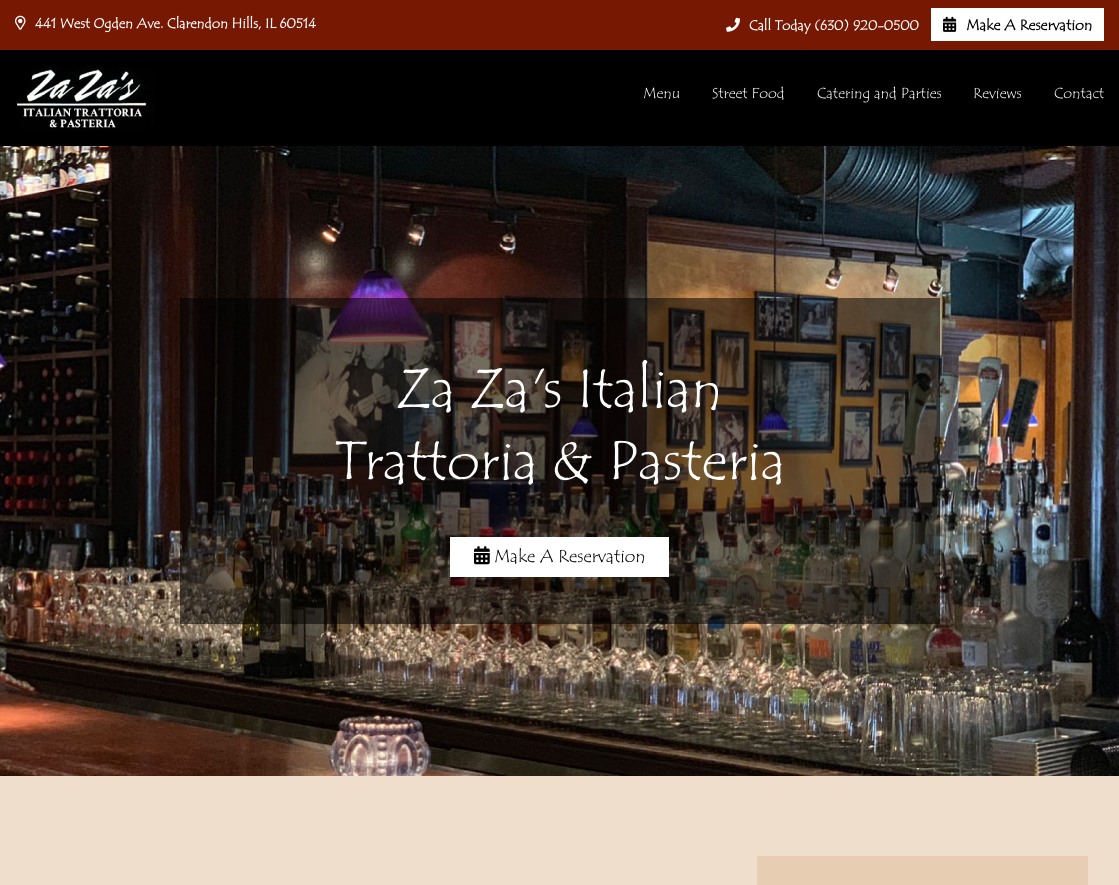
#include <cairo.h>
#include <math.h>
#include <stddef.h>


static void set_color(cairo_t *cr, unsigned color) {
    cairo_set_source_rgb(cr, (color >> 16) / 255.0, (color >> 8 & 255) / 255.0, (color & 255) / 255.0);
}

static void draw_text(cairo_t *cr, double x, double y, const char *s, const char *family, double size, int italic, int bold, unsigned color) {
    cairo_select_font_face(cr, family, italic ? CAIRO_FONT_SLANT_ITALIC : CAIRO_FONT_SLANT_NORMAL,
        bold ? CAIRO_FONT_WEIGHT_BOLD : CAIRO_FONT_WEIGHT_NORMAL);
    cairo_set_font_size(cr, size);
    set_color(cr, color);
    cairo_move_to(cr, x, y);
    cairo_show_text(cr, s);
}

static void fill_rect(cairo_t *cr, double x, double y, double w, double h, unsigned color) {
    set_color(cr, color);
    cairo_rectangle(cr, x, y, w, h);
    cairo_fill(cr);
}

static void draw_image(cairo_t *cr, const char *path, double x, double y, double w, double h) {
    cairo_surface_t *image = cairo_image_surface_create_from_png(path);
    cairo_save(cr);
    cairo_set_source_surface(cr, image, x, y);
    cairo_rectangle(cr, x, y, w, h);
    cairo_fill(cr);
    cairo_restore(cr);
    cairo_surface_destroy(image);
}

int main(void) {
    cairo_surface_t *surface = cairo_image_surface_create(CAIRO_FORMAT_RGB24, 1119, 885);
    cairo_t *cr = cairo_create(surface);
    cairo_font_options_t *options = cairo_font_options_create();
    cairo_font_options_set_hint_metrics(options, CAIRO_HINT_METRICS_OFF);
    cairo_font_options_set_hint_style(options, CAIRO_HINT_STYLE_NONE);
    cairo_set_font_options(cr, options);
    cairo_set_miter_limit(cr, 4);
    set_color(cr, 0xEFDECB);
    cairo_paint(cr);
    fill_rect(cr, 0, 0, 1119, 50, 0x771803);
    draw_image(cr, "assets/img1.png", 15, 15, 11, 15);
    draw_text(cr, 35, 28, "441 West Ogden Ave. Clarendon Hills, IL 60514", "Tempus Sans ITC", 14, 0, 1, 0xFFFFFF);
    draw_image(cr, "assets/img2.png", 726, 17, 14, 15);
    draw_text(cr, 749, 30, "Call Today (630) 920-0500", "Tempus Sans ITC", 14, 0, 1, 0xFFFFFF);
    fill_rect(cr, 931, 8, 173, 33, 0xFFFFFF);
    draw_image(cr, "assets/img3.png", 943, 16, 14, 16);
    draw_text(cr, 966, 30, "Make A Reservation", "Tempus Sans ITC", 15, 0, 1, 0x000000);
    fill_rect(cr, 0, 50, 1119, 96, 0x000000);
    draw_image(cr, "assets/img4.png", 17, 67, 137, 64);
    draw_text(cr, 643, 98, "Menu", "Tempus Sans ITC", 15, 0, 0, 0xFFFFFF);
    draw_text(cr, 712, 98, "Street Food", "Tempus Sans ITC", 15, 0, 0, 0xFFFFFF);
    draw_text(cr, 817, 98, "Catering and Parties", "Tempus Sans ITC", 15, 0, 0, 0xFFFFFF);
    draw_text(cr, 973, 98, "Reviews", "Tempus Sans ITC", 15, 0, 0, 0xFFFFFF);
    draw_text(cr, 1054, 98, "Contact", "Tempus Sans ITC", 15, 0, 0, 0xFFFFFF);
    draw_image(cr, "assets/img5.png", 0, 146, 1119, 630);
    cairo_set_source_rgba(cr, 0, 0, 0, 0.55);
    cairo_rectangle(cr, 180, 298, 760, 326);
    cairo_fill(cr);
    draw_text(cr, 396, 407, "Za Za's Italian", "Tempus Sans ITC", 56, 0, 0, 0xFFFFFF);
    draw_text(cr, 334, 479, "Trattoria & Pasteria", "Tempus Sans ITC", 56, 0, 0, 0xFFFFFF);
    fill_rect(cr, 450, 537, 219, 40, 0xFFFFFF);
    draw_image(cr, "assets/img6.png", 474, 546, 16, 19);
    draw_text(cr, 494, 562, "Make A Reservation", "Tempus Sans ITC", 18, 0, 0, 0x000000);
    fill_rect(cr, 757, 856, 331, 29, 0xE7CDB1);
    cairo_surface_write_to_png(surface, "output.png");
    cairo_font_options_destroy(options);
    cairo_destroy(cr);
    cairo_surface_destroy(surface);
    return 0;
}
